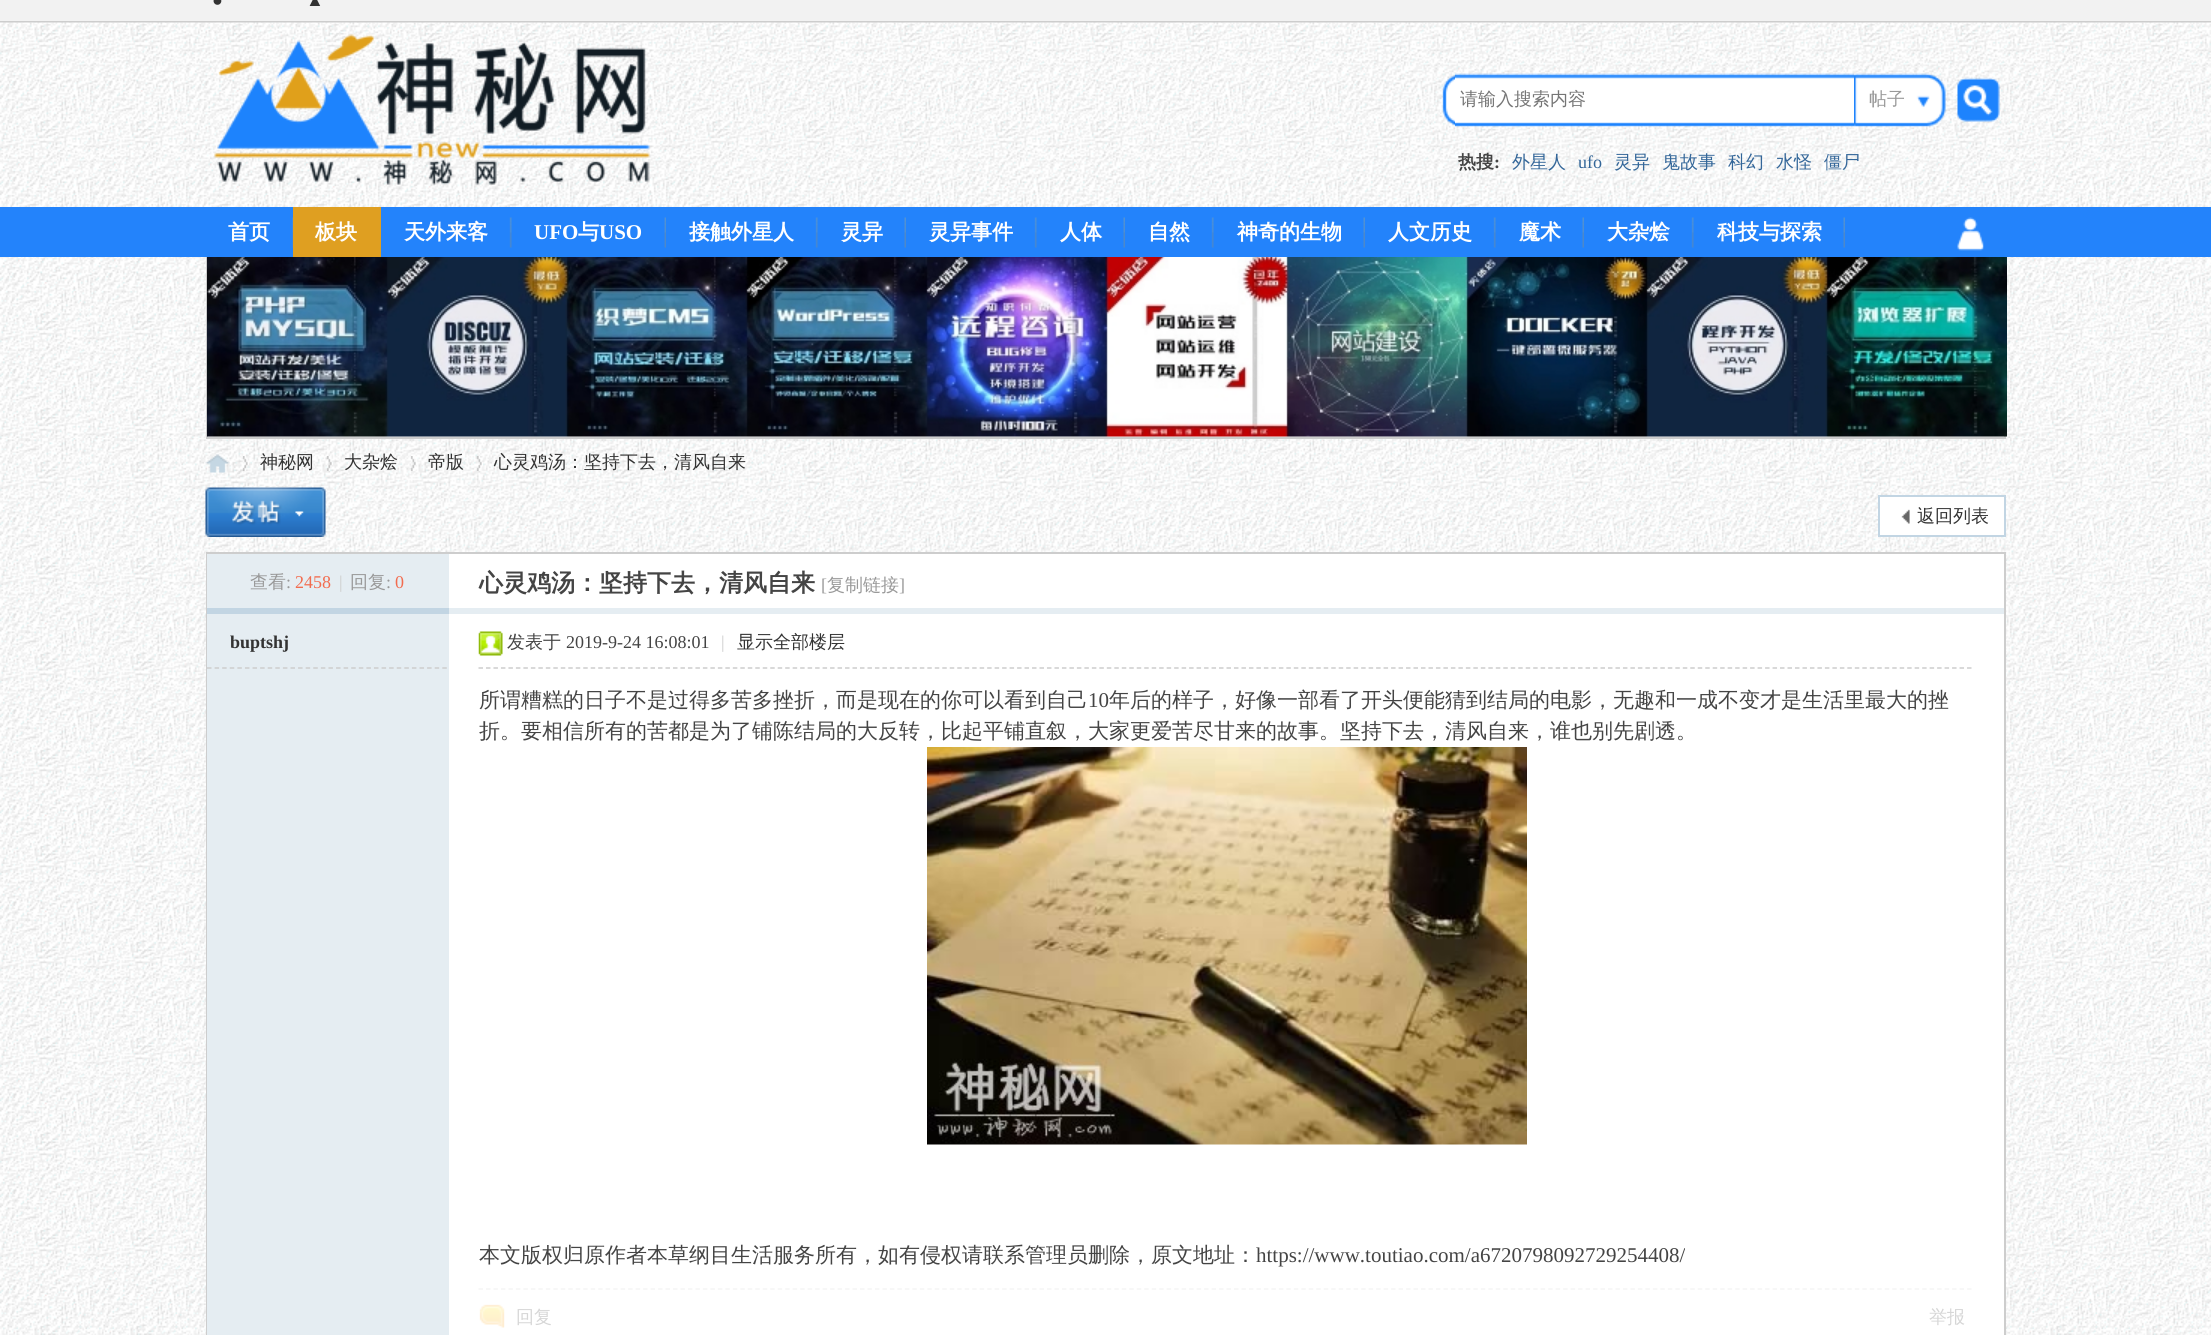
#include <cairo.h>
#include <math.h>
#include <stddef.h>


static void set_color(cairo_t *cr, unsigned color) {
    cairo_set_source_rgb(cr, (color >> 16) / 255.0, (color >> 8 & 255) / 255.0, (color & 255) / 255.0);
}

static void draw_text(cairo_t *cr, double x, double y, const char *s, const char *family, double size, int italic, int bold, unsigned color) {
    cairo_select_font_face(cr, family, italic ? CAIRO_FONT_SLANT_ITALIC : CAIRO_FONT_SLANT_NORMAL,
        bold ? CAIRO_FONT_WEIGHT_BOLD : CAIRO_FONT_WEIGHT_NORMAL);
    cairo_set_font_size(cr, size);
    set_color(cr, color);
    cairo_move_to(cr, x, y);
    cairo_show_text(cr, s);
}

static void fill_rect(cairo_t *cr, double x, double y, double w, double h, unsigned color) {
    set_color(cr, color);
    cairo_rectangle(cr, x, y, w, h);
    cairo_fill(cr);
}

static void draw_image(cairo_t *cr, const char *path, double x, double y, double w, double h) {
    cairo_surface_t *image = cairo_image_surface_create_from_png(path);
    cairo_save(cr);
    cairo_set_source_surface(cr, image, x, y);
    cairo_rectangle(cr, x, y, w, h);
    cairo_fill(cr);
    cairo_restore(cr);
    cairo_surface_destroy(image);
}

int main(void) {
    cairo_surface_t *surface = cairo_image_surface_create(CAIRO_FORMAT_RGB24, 2211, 1335);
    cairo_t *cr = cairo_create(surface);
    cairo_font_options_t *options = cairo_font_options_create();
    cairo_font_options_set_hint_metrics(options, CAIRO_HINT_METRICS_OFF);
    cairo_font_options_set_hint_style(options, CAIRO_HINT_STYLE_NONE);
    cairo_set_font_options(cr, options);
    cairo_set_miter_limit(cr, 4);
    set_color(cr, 0xFFFFFF);
    cairo_paint(cr);
    draw_image(cr, "assets/img1.png", 0, 438, 2211, 897);
    fill_rect(cr, 0, 0, 2211, 21, 0xF2F2F2);
    fill_rect(cr, 0, 21, 2211, 2, 0xCDCDCD);
    draw_text(cr, 212, 6, "●", "Liberation Serif", 18, 0, 0, 0x333333);
    draw_text(cr, 306, 6, "▲", "Liberation Serif", 18, 0, 0, 0x333333);
    draw_image(cr, "assets/img2.png", 0, 22, 2211, 416);
    draw_image(cr, "assets/img3.png", 214, 34, 436, 151);
    draw_image(cr, "assets/img4.png", 1442, 74, 13, 52);
    draw_image(cr, "assets/img5.png", 1455, 73, 399, 54);
    draw_text(cr, 1460, 105, "请输入搜索内容", "WenQuanYi Zen Hei Medium", 18, 0, 0, 0x757575);
    draw_image(cr, "assets/img6.png", 1854, 73, 92, 54);
    draw_text(cr, 1869, 105, "帖子", "WenQuanYi Zen Hei Medium", 18, 0, 0, 0x999999);
    draw_image(cr, "assets/img7.png", 1957, 77, 43, 45);
    draw_text(cr, 1458, 168, "热搜", "WenQuanYi Zen Hei", 18, 0, 1, 0x444444);
    draw_text(cr, 1494, 168, ":", "Liberation Serif", 18, 0, 1, 0x444444);
    draw_text(cr, 1512, 168, "外星人", "WenQuanYi Zen Hei Medium", 18, 0, 0, 0x336699);
    draw_text(cr, 1578, 168, "ufo", "Liberation Serif", 18, 0, 0, 0x336699);
    draw_text(cr, 1614, 168, "灵异", "WenQuanYi Zen Hei Medium", 18, 0, 0, 0x336699);
    draw_text(cr, 1662, 168, "鬼故事", "WenQuanYi Zen Hei Medium", 18, 0, 0, 0x336699);
    draw_text(cr, 1728, 168, "科幻", "WenQuanYi Zen Hei Medium", 18, 0, 0, 0x336699);
    draw_text(cr, 1776, 168, "水怪", "WenQuanYi Zen Hei Medium", 18, 0, 0, 0x336699);
    draw_text(cr, 1824, 168, "僵尸", "WenQuanYi Zen Hei Medium", 18, 0, 0, 0x336699);
    fill_rect(cr, 0, 207, 2211, 50, 0x2383FB);
    draw_image(cr, "assets/img8.png", 292, 217, 1, 31);
    draw_text(cr, 228, 239, "首页", "WenQuanYi Zen Hei", 21, 0, 1, 0xFFFFFF);
    fill_rect(cr, 293, 207, 88, 50, 0xDF9F21);
    draw_text(cr, 315, 239, "板块", "WenQuanYi Zen Hei", 21, 0, 1, 0xFFFFFF);
    draw_image(cr, "assets/img9.png", 509, 217, 3, 31);
    draw_text(cr, 404, 239, "天外来客", "WenQuanYi Zen Hei", 21, 0, 1, 0xFFFFFF);
    draw_image(cr, "assets/img10.png", 664, 217, 2, 31);
    draw_text(cr, 534, 239, "UFO", "Liberation Serif", 21, 0, 1, 0xFFFFFF);
    draw_text(cr, 578, 239, "与", "WenQuanYi Zen Hei", 21, 0, 1, 0xFFFFFF);
    draw_text(cr, 599, 239, "USO", "Liberation Serif", 21, 0, 1, 0xFFFFFF);
    draw_image(cr, "assets/img9.png", 815, 217, 3, 31);
    draw_text(cr, 689, 239, "接触外星人", "WenQuanYi Zen Hei", 21, 0, 1, 0xFFFFFF);
    draw_image(cr, "assets/img11.png", 904, 217, 2, 31);
    draw_text(cr, 841, 239, "灵异", "WenQuanYi Zen Hei", 21, 0, 1, 0xFFFFFF);
    draw_image(cr, "assets/img9.png", 1034, 217, 3, 31);
    draw_text(cr, 929, 239, "灵异事件", "WenQuanYi Zen Hei", 21, 0, 1, 0xFFFFFF);
    draw_image(cr, "assets/img11.png", 1123, 217, 2, 31);
    draw_text(cr, 1060, 239, "人体", "WenQuanYi Zen Hei", 21, 0, 1, 0xFFFFFF);
    draw_image(cr, "assets/img9.png", 1211, 217, 3, 31);
    draw_text(cr, 1148, 239, "自然", "WenQuanYi Zen Hei", 21, 0, 1, 0xFFFFFF);
    draw_image(cr, "assets/img11.png", 1363, 217, 2, 31);
    draw_text(cr, 1237, 239, "神奇的生物", "WenQuanYi Zen Hei", 21, 0, 1, 0xFFFFFF);
    draw_image(cr, "assets/img9.png", 1493, 217, 3, 31);
    draw_text(cr, 1388, 239, "人文历史", "WenQuanYi Zen Hei", 21, 0, 1, 0xFFFFFF);
    draw_image(cr, "assets/img11.png", 1582, 217, 2, 31);
    draw_text(cr, 1519, 239, "魔术", "WenQuanYi Zen Hei", 21, 0, 1, 0xFFFFFF);
    draw_image(cr, "assets/img9.png", 1691, 217, 3, 31);
    draw_text(cr, 1607, 239, "大杂烩", "WenQuanYi Zen Hei", 21, 0, 1, 0xFFFFFF);
    draw_image(cr, "assets/img11.png", 1843, 217, 2, 31);
    draw_text(cr, 1717, 239, "科技与探索", "WenQuanYi Zen Hei", 21, 0, 1, 0xFFFFFF);
    draw_image(cr, "assets/img12.png", 1957, 217, 27, 34);
    fill_rect(cr, 208, 436, 1796, 1, 0xF2F2F2);
    fill_rect(cr, 2004, 436, 2, 2, 0xCDCDCD);
    fill_rect(cr, 206, 437, 1800, 2, 0xCDCDCD);
    fill_rect(cr, 206, 257, 2, 181, 0xCDCDCD);
    draw_image(cr, "assets/img13.png", 207, 257, 1800, 180);
    draw_image(cr, "assets/img14.png", 205, 454, 25, 19);
    draw_image(cr, "assets/img15.png", 242, 456, 7, 15);
    draw_text(cr, 260, 468, "神秘网", "WenQuanYi Zen Hei Medium", 18, 0, 0, 0x333333);
    draw_image(cr, "assets/img16.png", 326, 456, 7, 15);
    draw_text(cr, 344, 468, "大杂烩", "WenQuanYi Zen Hei Medium", 18, 0, 0, 0x333333);
    draw_image(cr, "assets/img17.png", 410, 456, 6, 15);
    draw_text(cr, 428, 468, "帝版", "WenQuanYi Zen Hei Medium", 18, 0, 0, 0x333333);
    draw_image(cr, "assets/img18.png", 476, 456, 7, 15);
    draw_text(cr, 494, 468, "心灵鸡汤：坚持下去，清风自来", "WenQuanYi Zen Hei Medium", 18, 0, 0, 0x333333);
    draw_image(cr, "assets/img19.png", 205, 487, 121, 50);
    fill_rect(cr, 1880, 497, 124, 38, 0xFFFFFF);
    draw_image(cr, "assets/img20.png", 1901, 509, 9, 15);
    cairo_rectangle(cr, 1879, 496, 126, 40);
    set_color(cr, 0xC2D5E3);
    cairo_stroke(cr);
    draw_text(cr, 1917, 522, "返回列表", "WenQuanYi Zen Hei Medium", 18, 0, 0, 0x333333);
    fill_rect(cr, 449, 554, 1555, 781, 0xFFFFFF);
    cairo_rectangle(cr, 207, 553, 1798, 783);
    set_color(cr, 0xCDCDCD);
    cairo_stroke(cr);
    fill_rect(cr, 207, 554, 242, 54, 0xE5EDF2);
    draw_text(cr, 250, 588, "查看", "WenQuanYi Zen Hei Medium", 18, 0, 0, 0x999999);
    draw_text(cr, 286, 588, ":", "Liberation Serif", 18, 0, 0, 0x999999);
    draw_text(cr, 295, 588, "2458", "Liberation Serif", 18, 0, 0, 0xF26C4F);
    draw_text(cr, 339, 588, "|", "Liberation Serif", 18, 0, 0, 0xCCCCCC);
    draw_text(cr, 350, 588, "回复", "WenQuanYi Zen Hei Medium", 18, 0, 0, 0x999999);
    draw_text(cr, 386, 588, ":", "Liberation Serif", 18, 0, 0, 0x999999);
    draw_text(cr, 395, 588, "0", "Liberation Serif", 18, 0, 0, 0xF26C4F);
    draw_text(cr, 479, 591, "心灵鸡汤：坚持下去，清风自来", "WenQuanYi Zen Hei", 24, 0, 1, 0x444444);
    draw_text(cr, 821, 591, "[", "Liberation Serif", 18, 0, 0, 0x999999);
    draw_text(cr, 827, 591, "复制链接", "WenQuanYi Zen Hei Medium", 18, 0, 0, 0x999999);
    draw_text(cr, 899, 591, "]", "Liberation Serif", 18, 0, 0, 0x999999);
    fill_rect(cr, 207, 608, 242, 6, 0xC2D5E3);
    fill_rect(cr, 449, 608, 1555, 6, 0xE5EDF2);
    fill_rect(cr, 207, 614, 242, 721, 0xE5EDF2);
    cairo_new_path(cr);
    cairo_move_to(cr, 207, 668);
    cairo_line_to(cr, 447, 668);
    set_color(cr, 0xCDCDCD);
    cairo_set_line_width(cr, 1.5);
    cairo_set_dash(cr, (double[]){4.5, 3.09}, 2, 0);
    cairo_stroke(cr);
    draw_text(cr, 230, 648, "buptshj", "Liberation Serif", 18, 0, 1, 0x333333);
    cairo_new_path(cr);
    cairo_move_to(cr, 478.5, 668);
    cairo_line_to(cr, 1974, 668);
    set_color(cr, 0xCDCDCD);
    cairo_set_dash(cr, (double[]){4.5, 2.98}, 2, 0);
    cairo_stroke(cr);
    draw_image(cr, "assets/img21.png", 478, 631, 25, 25);
    draw_text(cr, 507, 648, "发表于", "WenQuanYi Zen Hei Medium", 18, 0, 0, 0x444444);
    draw_text(cr, 566, 648, "2019-9-24 16:08:01", "Liberation Serif", 18, 0, 0, 0x444444);
    draw_text(cr, 721, 648, "|", "Liberation Serif", 18, 0, 0, 0xCCCCCC);
    draw_text(cr, 737, 648, "显示全部楼层", "WenQuanYi Zen Hei Medium", 18, 0, 0, 0x333333);
    draw_text(cr, 479, 707, "所谓糟糕的日子不是过得多苦多挫折，而是现在的你可以看到自己", "WenQuanYi Zen Hei Medium", 21, 0, 0, 0x444444);
    draw_text(cr, 1088, 707, "10", "Liberation Serif", 21, 0, 0, 0x444444);
    draw_text(cr, 1109, 707, "年后的样子，好像一部看了开头便能猜到结局的电影，无趣和一成不变才是生活里最大的挫", "WenQuanYi Zen Hei Medium", 21, 0, 0, 0x444444);
    draw_text(cr, 479, 738, "折。要相信所有的苦都是为了铺陈结局的大反转，比起平铺直叙，大家更爱苦尽甘来的故事。坚持下去，清风自来，谁也别先剧透。", "WenQuanYi Zen Hei Medium", 21, 0, 0, 0x444444);
    draw_image(cr, "assets/img22.png", 927, 747, 600, 398);
    draw_text(cr, 479, 1262, "本文版权归原作者本草纲目生活服务所有，如有侵权请联系管理员删除，原文地址：", "WenQuanYi Zen Hei Medium", 21, 0, 0, 0x444444);
    draw_text(cr, 1256, 1262, "https://www.toutiao.com/a6720798092729254408/", "Liberation Serif", 21, 0, 0, 0x444444);
    cairo_new_path(cr);
    cairo_move_to(cr, 478.5, 1289);
    cairo_line_to(cr, 1974, 1289);
    set_color(cr, 0xF5F5F5);
    cairo_stroke(cr);
    draw_image(cr, "assets/img23.png", 479, 1304, 26, 24);
    draw_text(cr, 516, 1323, "回复", "WenQuanYi Zen Hei Medium", 18, 0, 0, 0xD6D6D6);
    draw_text(cr, 1929, 1323, "举报", "WenQuanYi Zen Hei Medium", 18, 0, 0, 0xD6D6D6);
    cairo_surface_write_to_png(surface, "output.png");
    cairo_font_options_destroy(options);
    cairo_destroy(cr);
    cairo_surface_destroy(surface);
    return 0;
}
